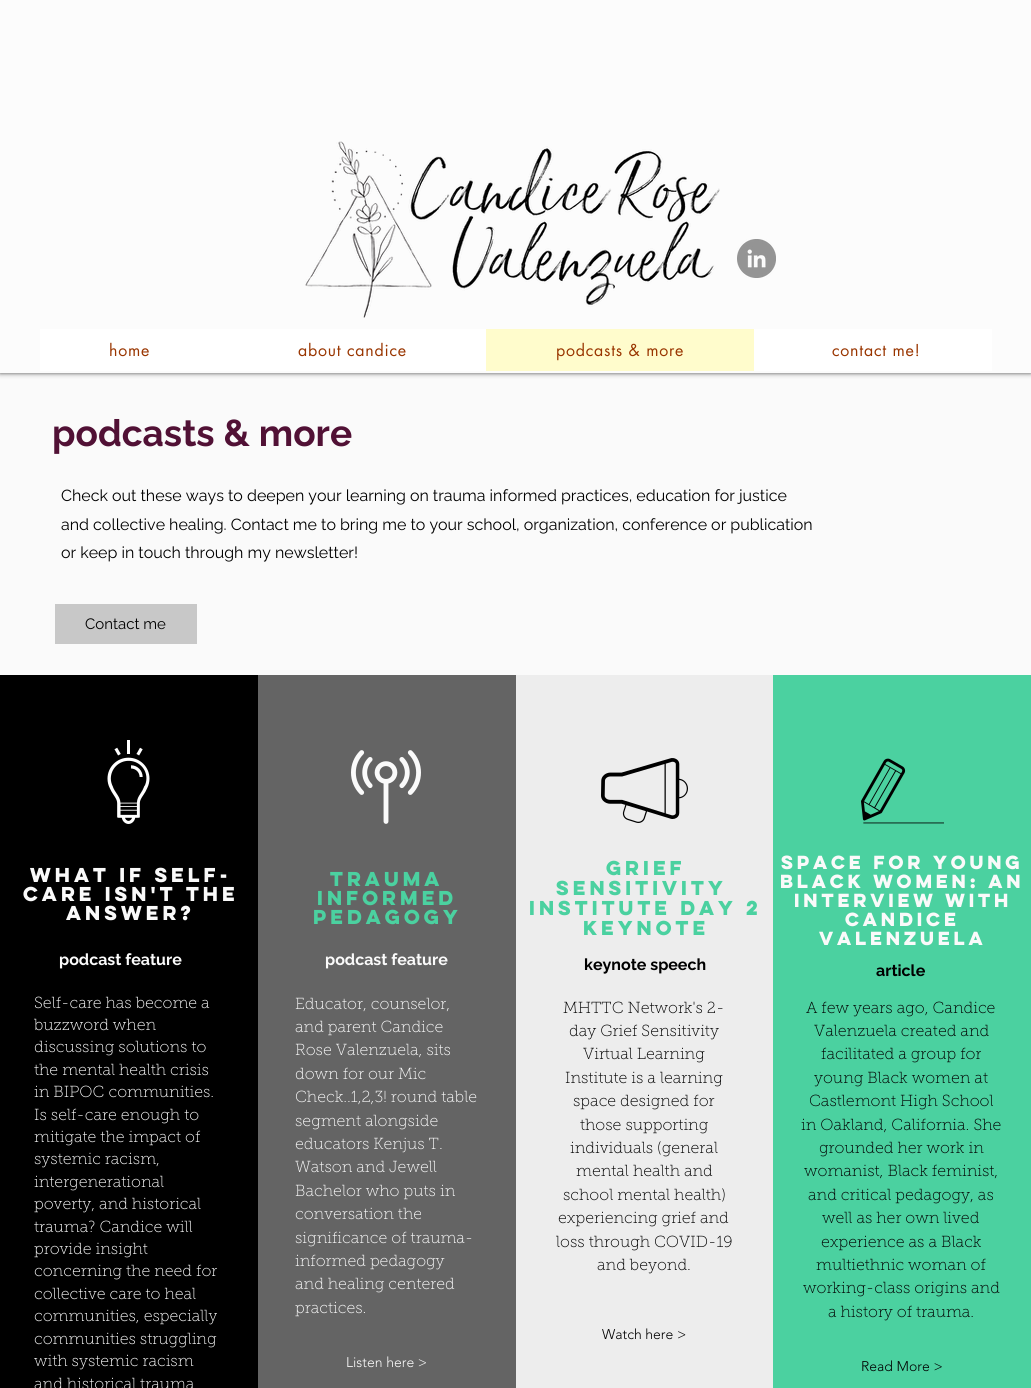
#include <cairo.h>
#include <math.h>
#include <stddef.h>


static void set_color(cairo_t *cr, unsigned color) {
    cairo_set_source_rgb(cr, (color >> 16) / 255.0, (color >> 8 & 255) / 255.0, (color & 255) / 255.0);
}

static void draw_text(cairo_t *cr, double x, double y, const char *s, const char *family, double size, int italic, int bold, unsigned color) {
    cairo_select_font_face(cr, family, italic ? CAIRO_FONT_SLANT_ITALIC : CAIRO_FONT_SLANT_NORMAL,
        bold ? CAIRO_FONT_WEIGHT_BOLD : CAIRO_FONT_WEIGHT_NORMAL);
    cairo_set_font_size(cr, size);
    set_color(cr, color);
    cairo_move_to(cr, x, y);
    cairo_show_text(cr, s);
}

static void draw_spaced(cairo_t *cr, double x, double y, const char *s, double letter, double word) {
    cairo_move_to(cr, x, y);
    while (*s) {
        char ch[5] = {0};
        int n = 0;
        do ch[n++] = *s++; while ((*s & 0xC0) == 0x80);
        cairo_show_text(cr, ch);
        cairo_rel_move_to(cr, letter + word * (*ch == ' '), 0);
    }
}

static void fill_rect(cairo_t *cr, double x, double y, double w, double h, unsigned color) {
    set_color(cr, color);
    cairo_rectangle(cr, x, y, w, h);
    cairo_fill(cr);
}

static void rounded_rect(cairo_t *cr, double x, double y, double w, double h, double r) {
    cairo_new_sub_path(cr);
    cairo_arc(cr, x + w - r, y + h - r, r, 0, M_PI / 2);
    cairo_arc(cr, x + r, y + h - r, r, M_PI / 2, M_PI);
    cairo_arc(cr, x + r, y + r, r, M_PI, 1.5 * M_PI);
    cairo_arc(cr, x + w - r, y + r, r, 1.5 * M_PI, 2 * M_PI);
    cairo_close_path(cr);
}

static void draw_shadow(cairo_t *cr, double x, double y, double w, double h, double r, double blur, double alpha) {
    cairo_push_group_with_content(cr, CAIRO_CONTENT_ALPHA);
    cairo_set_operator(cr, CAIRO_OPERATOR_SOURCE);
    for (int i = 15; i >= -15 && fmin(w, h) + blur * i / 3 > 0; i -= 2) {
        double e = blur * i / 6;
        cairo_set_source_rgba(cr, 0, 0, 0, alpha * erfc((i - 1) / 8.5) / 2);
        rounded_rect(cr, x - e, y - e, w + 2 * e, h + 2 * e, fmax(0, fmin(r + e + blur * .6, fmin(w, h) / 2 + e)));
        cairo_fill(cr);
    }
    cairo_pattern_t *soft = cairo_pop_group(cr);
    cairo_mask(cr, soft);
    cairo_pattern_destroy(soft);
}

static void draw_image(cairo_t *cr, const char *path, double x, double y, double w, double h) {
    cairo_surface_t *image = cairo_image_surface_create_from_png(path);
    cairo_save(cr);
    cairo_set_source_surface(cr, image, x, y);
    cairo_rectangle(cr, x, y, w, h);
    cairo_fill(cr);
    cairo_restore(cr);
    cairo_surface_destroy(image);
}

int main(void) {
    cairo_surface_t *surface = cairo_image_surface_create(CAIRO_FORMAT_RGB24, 1031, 1388);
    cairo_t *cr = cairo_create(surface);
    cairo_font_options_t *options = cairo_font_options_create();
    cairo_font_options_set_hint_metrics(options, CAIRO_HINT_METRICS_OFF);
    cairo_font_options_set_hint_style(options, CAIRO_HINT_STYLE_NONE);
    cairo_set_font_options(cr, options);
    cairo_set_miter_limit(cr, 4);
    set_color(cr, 0xFAFAFA);
    cairo_paint(cr);
    set_color(cr, 0x000000);
    draw_shadow(cr, 0, 0, 1031, 373, 0, 2.5, 0.7);
    fill_rect(cr, 0, 0, 1031, 373, 0xFCFCFC);
    draw_image(cr, "assets/img1.png", 305, 141, 415, 177);
    draw_image(cr, "assets/img2.png", 737, 239, 39, 39);
    fill_rect(cr, 40, 329, 952, 42, 0xFFFFFF);
    cairo_select_font_face(cr, "futura", CAIRO_FONT_SLANT_NORMAL, CAIRO_FONT_WEIGHT_NORMAL);
    cairo_set_font_size(cr, 16);
    set_color(cr, 0x993500);
    draw_spaced(cr, 109, 356, "home", 0.75, 0);
    draw_spaced(cr, 298, 356, "about candice", 0.75, 0);
    fill_rect(cr, 486, 329, 268, 42, 0xFFFCCC);
    set_color(cr, 0x993500);
    draw_spaced(cr, 556, 356, "podcasts & more", 0.75, 0);
    draw_spaced(cr, 832, 356, "contact me!", 0.75, 0);
    draw_text(cr, 52, 446, "podcasts & more", "Raleway", 37, 0, 1, 0x511135);
    draw_text(cr, 61, 501, "Check out these ways to deepen your learning on trauma informed practices, education for justice", "Raleway", 16, 0, 0, 0x000000);
    draw_text(cr, 61, 530, "and collective healing. Contact me to bring me to your school, organization, conference or publication", "Raleway", 16, 0, 0, 0x000000);
    draw_text(cr, 61, 558, "or keep in touch through my newsletter!", "Raleway", 16, 0, 0, 0x000000);
    fill_rect(cr, 55, 604, 142, 40, 0xC8C8C8);
    draw_text(cr, 85, 629, "Contact me", "Raleway", 15, 0, 0, 0x000000);
    fill_rect(cr, 0, 675, 258, 713, 0x000000);
    draw_image(cr, "assets/img3.png", 107, 740, 43, 84);
    draw_text(cr, 30, 882, "What if Self-", "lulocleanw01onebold", 18, 0, 1, 0xFAFAFA);
    draw_text(cr, 23, 901, "Care isn't the", "lulocleanw01onebold", 18, 0, 1, 0xFAFAFA);
    draw_text(cr, 66, 920, "Answer?", "lulocleanw01onebold", 18, 0, 1, 0xFAFAFA);
    draw_text(cr, 59, 965, "podcast feature", "Raleway", 16, 0, 1, 0xFAFAFA);
    draw_text(cr, 34, 1008, "Self-care has become a", "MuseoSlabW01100 Thin", 16, 0, 0, 0xFAFAFA);
    draw_text(cr, 34, 1030, "buzzword when", "MuseoSlabW01100 Thin", 16, 0, 0, 0xFAFAFA);
    draw_text(cr, 34, 1052, "discussing solutions to", "MuseoSlabW01100 Thin", 16, 0, 0, 0xFAFAFA);
    draw_text(cr, 34, 1075, "the mental health crisis", "MuseoSlabW01100 Thin", 16, 0, 0, 0xFAFAFA);
    draw_text(cr, 34, 1097, "in BIPOC communities.", "MuseoSlabW01100 Thin", 16, 0, 0, 0xFAFAFA);
    draw_text(cr, 34, 1120, "Is self-care enough to", "MuseoSlabW01100 Thin", 16, 0, 0, 0xFAFAFA);
    draw_text(cr, 34, 1142, "mitigate the impact of", "MuseoSlabW01100 Thin", 16, 0, 0, 0xFAFAFA);
    draw_text(cr, 34, 1164, "systemic racism,", "MuseoSlabW01100 Thin", 16, 0, 0, 0xFAFAFA);
    draw_text(cr, 34, 1187, "intergenerational", "MuseoSlabW01100 Thin", 16, 0, 0, 0xFAFAFA);
    draw_text(cr, 34, 1209, "poverty, and historical", "MuseoSlabW01100 Thin", 16, 0, 0, 0xFAFAFA);
    draw_text(cr, 34, 1232, "trauma? Candice will", "MuseoSlabW01100 Thin", 16, 0, 0, 0xFAFAFA);
    draw_text(cr, 34, 1254, "provide insight", "MuseoSlabW01100 Thin", 16, 0, 0, 0xFAFAFA);
    draw_text(cr, 34, 1276, "concerning the need for", "MuseoSlabW01100 Thin", 16, 0, 0, 0xFAFAFA);
    draw_text(cr, 34, 1299, "collective care to heal", "MuseoSlabW01100 Thin", 16, 0, 0, 0xFAFAFA);
    draw_text(cr, 34, 1321, "communities, especially", "MuseoSlabW01100 Thin", 16, 0, 0, 0xFAFAFA);
    draw_text(cr, 34, 1344, "communities struggling", "MuseoSlabW01100 Thin", 16, 0, 0, 0xFAFAFA);
    draw_text(cr, 34, 1366, "with systemic racism", "MuseoSlabW01100 Thin", 16, 0, 0, 0xFAFAFA);
    draw_text(cr, 34, 1389, "and historical trauma", "MuseoSlabW01100 Thin", 16, 0, 0, 0xFAFAFA);
    fill_rect(cr, 258, 675, 258, 713, 0x646464);
    draw_image(cr, "assets/img4.png", 351, 750, 70, 74);
    draw_text(cr, 330, 886, "Trauma", "lulocleanw01onebold", 18, 0, 1, 0x4BD1A0);
    draw_text(cr, 317, 905, "Informed", "lulocleanw01onebold", 18, 0, 1, 0x4BD1A0);
    draw_text(cr, 313, 924, "Pedagogy", "lulocleanw01onebold", 18, 0, 1, 0x4BD1A0);
    draw_text(cr, 325, 965, "podcast feature", "Raleway", 16, 0, 1, 0xFAFAFA);
    draw_text(cr, 295, 1009, "Educator, counselor,", "MuseoSlabW01100 Thin", 16, 0, 0, 0xFAFAFA);
    draw_text(cr, 295, 1032, "and parent Candice", "MuseoSlabW01100 Thin", 16, 0, 0, 0xFAFAFA);
    draw_text(cr, 295, 1055, "Rose Valenzuela, sits", "MuseoSlabW01100 Thin", 16, 0, 0, 0xFAFAFA);
    draw_text(cr, 295, 1079, "down for our Mic", "MuseoSlabW01100 Thin", 16, 0, 0, 0xFAFAFA);
    draw_text(cr, 295, 1102, "Check..1,2,3! round table", "MuseoSlabW01100 Thin", 16, 0, 0, 0xFAFAFA);
    draw_text(cr, 295, 1126, "segment alongside", "MuseoSlabW01100 Thin", 16, 0, 0, 0xFAFAFA);
    draw_text(cr, 295, 1149, "educators Kenjus T.", "MuseoSlabW01100 Thin", 16, 0, 0, 0xFAFAFA);
    draw_text(cr, 295, 1172, "Watson and Jewell", "MuseoSlabW01100 Thin", 16, 0, 0, 0xFAFAFA);
    draw_text(cr, 295, 1196, "Bachelor who puts in", "MuseoSlabW01100 Thin", 16, 0, 0, 0xFAFAFA);
    draw_text(cr, 295, 1219, "conversation the", "MuseoSlabW01100 Thin", 16, 0, 0, 0xFAFAFA);
    draw_text(cr, 295, 1243, "significance of trauma-", "MuseoSlabW01100 Thin", 16, 0, 0, 0xFAFAFA);
    draw_text(cr, 295, 1266, "informed pedagogy", "MuseoSlabW01100 Thin", 16, 0, 0, 0xFAFAFA);
    draw_text(cr, 295, 1289, "and healing centered", "MuseoSlabW01100 Thin", 16, 0, 0, 0xFAFAFA);
    draw_text(cr, 295, 1313, "practices.", "MuseoSlabW01100 Thin", 16, 0, 0, 0xFAFAFA);
    draw_text(cr, 346, 1367, "Listen here >", "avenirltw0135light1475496 Light", 14, 0, 0, 0xFAFAFA);
    fill_rect(cr, 516, 675, 257, 713, 0xEDEDED);
    draw_image(cr, "assets/img5.png", 601, 758, 87, 65);
    draw_text(cr, 606, 875, "grief", "lulocleanw01onebold", 18, 0, 1, 0x4BD1A0);
    draw_text(cr, 556, 895, "sensitivity", "lulocleanw01onebold", 18, 0, 1, 0x4BD1A0);
    draw_text(cr, 529, 915, "institute Day 2", "lulocleanw01onebold", 18, 0, 1, 0x4BD1A0);
    draw_text(cr, 583, 935, "Keynote", "lulocleanw01onebold", 18, 0, 1, 0x4BD1A0);
    draw_text(cr, 584, 970, "keynote speech", "Raleway", 16, 0, 1, 0x000000);
    draw_text(cr, 563, 1013, "MHTTC Network's 2-", "MuseoSlabW01100 Thin", 16, 0, 0, 0x000000);
    draw_text(cr, 569, 1036, "day Grief Sensitivity", "MuseoSlabW01100 Thin", 16, 0, 0, 0x000000);
    draw_text(cr, 583, 1059, "Virtual Learning", "MuseoSlabW01100 Thin", 16, 0, 0, 0x000000);
    draw_text(cr, 565, 1083, "Institute is a learning", "MuseoSlabW01100 Thin", 16, 0, 0, 0x000000);
    draw_text(cr, 573, 1106, "space designed for", "MuseoSlabW01100 Thin", 16, 0, 0, 0x000000);
    draw_text(cr, 580, 1130, "those supporting", "MuseoSlabW01100 Thin", 16, 0, 0, 0x000000);
    draw_text(cr, 570, 1153, "individuals (general", "MuseoSlabW01100 Thin", 16, 0, 0, 0x000000);
    draw_text(cr, 576, 1176, "mental health and", "MuseoSlabW01100 Thin", 16, 0, 0, 0x000000);
    draw_text(cr, 563, 1200, "school mental health)", "MuseoSlabW01100 Thin", 16, 0, 0, 0x000000);
    draw_text(cr, 558, 1223, "experiencing grief and", "MuseoSlabW01100 Thin", 16, 0, 0, 0x000000);
    draw_text(cr, 556, 1247, "loss through COVID-19", "MuseoSlabW01100 Thin", 16, 0, 0, 0x000000);
    draw_text(cr, 597, 1270, "and beyond.", "MuseoSlabW01100 Thin", 16, 0, 0, 0x000000);
    draw_text(cr, 602, 1339, "Watch here >", "avenirltw0135light1475496 Light", 14, 0, 0, 0x000000);
    fill_rect(cr, 773, 675, 258, 713, 0x4BD1A0);
    draw_image(cr, "assets/img6.png", 861, 758, 83, 66);
    draw_text(cr, 781, 869, "Space for Young", "lulocleanw01onebold", 17, 0, 1, 0xFAFAFA);
    draw_text(cr, 780, 888, "Black Women: An", "lulocleanw01onebold", 17, 0, 1, 0xFAFAFA);
    draw_text(cr, 794, 907, "Interview with", "lulocleanw01onebold", 17, 0, 1, 0xFAFAFA);
    draw_text(cr, 845, 926, "Candice", "lulocleanw01onebold", 17, 0, 1, 0xFAFAFA);
    draw_text(cr, 819, 945, "Valenzuela", "lulocleanw01onebold", 17, 0, 1, 0xFAFAFA);
    draw_text(cr, 876, 976, "article", "Raleway", 16, 0, 1, 0x000000);
    draw_text(cr, 806, 1013, "A few years ago, Candice", "MuseoSlabW01100 Thin", 16, 0, 0, 0x000000);
    draw_text(cr, 814, 1036, "Valenzuela created and", "MuseoSlabW01100 Thin", 16, 0, 0, 0x000000);
    draw_text(cr, 821, 1059, "facilitated a group for", "MuseoSlabW01100 Thin", 16, 0, 0, 0x000000);
    draw_text(cr, 814, 1083, "young Black women at", "MuseoSlabW01100 Thin", 16, 0, 0, 0x000000);
    draw_text(cr, 809, 1106, "Castlemont High School", "MuseoSlabW01100 Thin", 16, 0, 0, 0x000000);
    draw_text(cr, 801, 1130, "in Oakland, California. She", "MuseoSlabW01100 Thin", 16, 0, 0, 0x000000);
    draw_text(cr, 819, 1153, "grounded her work in", "MuseoSlabW01100 Thin", 16, 0, 0, 0x000000);
    draw_text(cr, 804, 1176, "womanist, Black feminist,", "MuseoSlabW01100 Thin", 16, 0, 0, 0x000000);
    draw_text(cr, 808, 1200, "and critical pedagogy, as", "MuseoSlabW01100 Thin", 16, 0, 0, 0x000000);
    draw_text(cr, 822, 1223, "well as her own lived", "MuseoSlabW01100 Thin", 16, 0, 0, 0x000000);
    draw_text(cr, 821, 1247, "experience as a Black", "MuseoSlabW01100 Thin", 16, 0, 0, 0x000000);
    draw_text(cr, 816, 1270, "multiethnic woman of", "MuseoSlabW01100 Thin", 16, 0, 0, 0x000000);
    draw_text(cr, 803, 1293, "working-class origins and", "MuseoSlabW01100 Thin", 16, 0, 0, 0x000000);
    draw_text(cr, 828, 1317, "a history of trauma.", "MuseoSlabW01100 Thin", 16, 0, 0, 0x000000);
    draw_text(cr, 861, 1371, "Read More >", "avenirltw0135light1475496 Light", 14, 0, 0, 0x000000);
    cairo_surface_write_to_png(surface, "output.png");
    cairo_font_options_destroy(options);
    cairo_destroy(cr);
    cairo_surface_destroy(surface);
    return 0;
}
